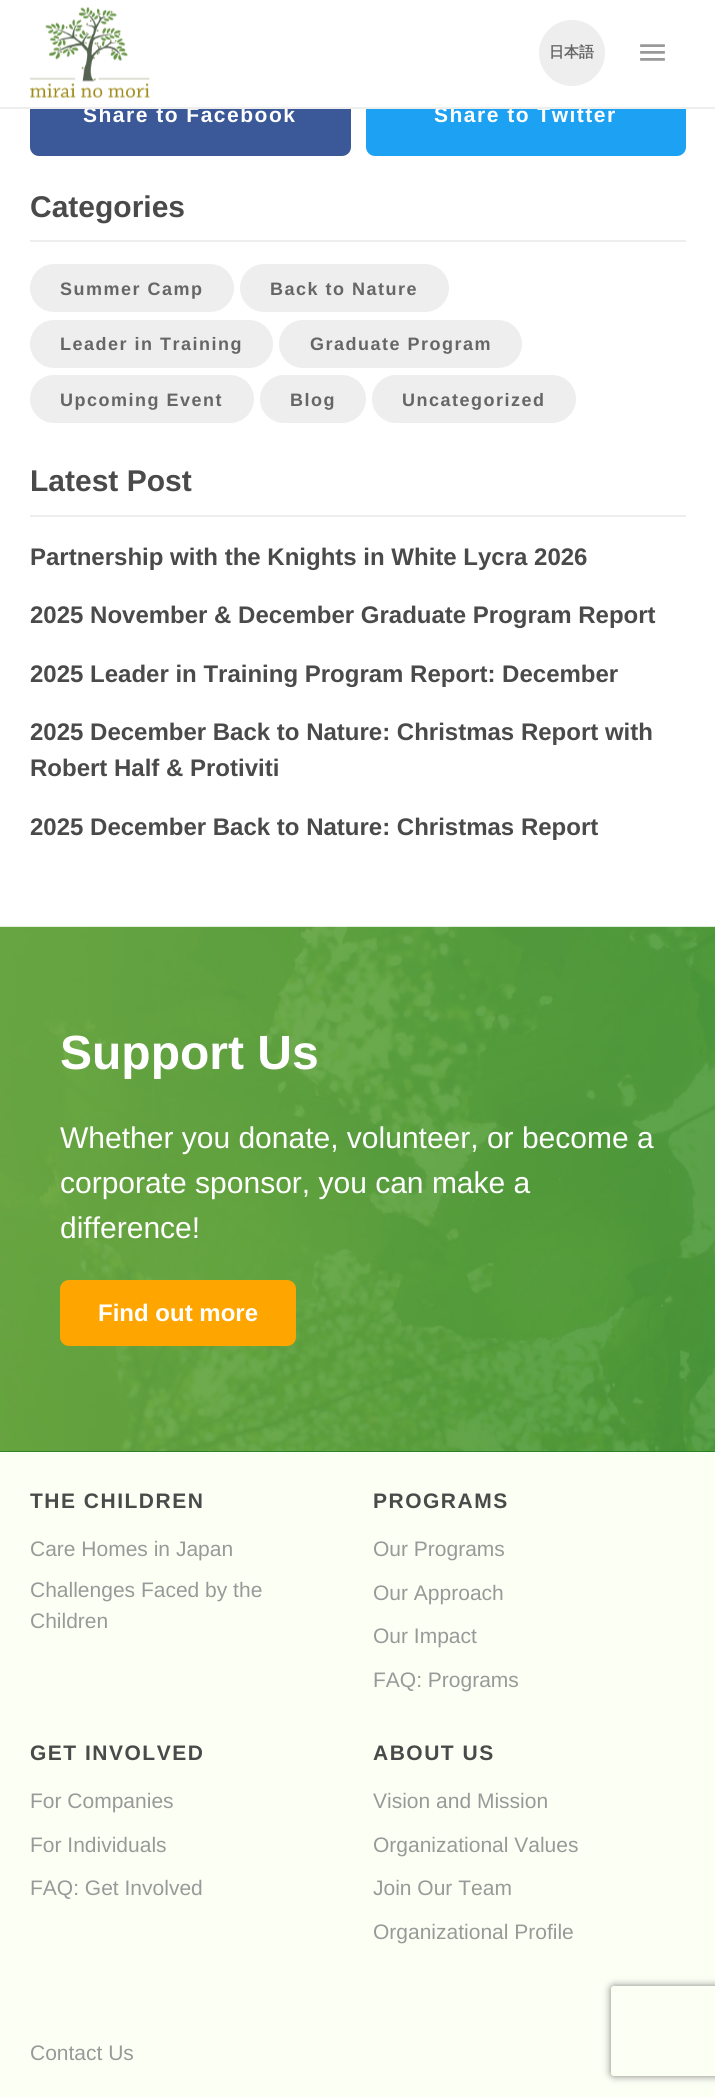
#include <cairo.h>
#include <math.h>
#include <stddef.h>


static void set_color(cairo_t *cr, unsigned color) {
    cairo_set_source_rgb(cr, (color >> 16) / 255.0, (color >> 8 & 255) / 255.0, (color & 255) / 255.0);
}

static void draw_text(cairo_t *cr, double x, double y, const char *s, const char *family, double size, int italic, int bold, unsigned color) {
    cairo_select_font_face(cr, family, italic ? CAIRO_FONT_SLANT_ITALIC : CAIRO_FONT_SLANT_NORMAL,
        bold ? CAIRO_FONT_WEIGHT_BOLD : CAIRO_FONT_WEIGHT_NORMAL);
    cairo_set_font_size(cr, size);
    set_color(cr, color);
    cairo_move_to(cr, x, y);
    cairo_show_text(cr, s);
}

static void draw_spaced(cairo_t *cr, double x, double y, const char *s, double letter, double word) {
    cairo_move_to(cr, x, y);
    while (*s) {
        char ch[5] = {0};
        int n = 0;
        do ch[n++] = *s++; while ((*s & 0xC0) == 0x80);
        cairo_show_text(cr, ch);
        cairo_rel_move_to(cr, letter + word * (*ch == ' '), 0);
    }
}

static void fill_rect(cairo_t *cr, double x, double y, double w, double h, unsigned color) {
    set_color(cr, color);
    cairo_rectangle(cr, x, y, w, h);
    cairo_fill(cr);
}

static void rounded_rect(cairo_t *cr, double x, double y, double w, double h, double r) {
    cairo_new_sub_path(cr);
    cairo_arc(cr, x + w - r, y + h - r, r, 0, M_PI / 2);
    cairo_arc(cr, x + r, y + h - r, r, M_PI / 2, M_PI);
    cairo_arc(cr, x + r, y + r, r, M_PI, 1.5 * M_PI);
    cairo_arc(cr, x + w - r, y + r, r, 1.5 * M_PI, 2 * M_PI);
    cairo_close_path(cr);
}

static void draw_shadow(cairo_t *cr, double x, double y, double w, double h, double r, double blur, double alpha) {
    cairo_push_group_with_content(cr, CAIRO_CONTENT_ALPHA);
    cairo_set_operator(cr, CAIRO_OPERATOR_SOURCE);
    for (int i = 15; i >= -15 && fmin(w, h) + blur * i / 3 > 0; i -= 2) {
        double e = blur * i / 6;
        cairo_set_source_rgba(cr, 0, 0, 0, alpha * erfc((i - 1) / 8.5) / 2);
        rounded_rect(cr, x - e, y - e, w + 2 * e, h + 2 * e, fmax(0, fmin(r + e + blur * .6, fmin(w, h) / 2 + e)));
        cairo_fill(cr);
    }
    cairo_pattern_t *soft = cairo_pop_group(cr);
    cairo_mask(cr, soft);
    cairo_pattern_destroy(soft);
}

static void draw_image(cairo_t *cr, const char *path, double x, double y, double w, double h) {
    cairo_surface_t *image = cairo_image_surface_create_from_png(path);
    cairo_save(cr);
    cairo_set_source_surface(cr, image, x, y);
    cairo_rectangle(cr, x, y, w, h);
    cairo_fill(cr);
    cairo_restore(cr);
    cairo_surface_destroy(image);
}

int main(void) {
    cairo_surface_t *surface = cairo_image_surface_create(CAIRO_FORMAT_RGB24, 715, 2097);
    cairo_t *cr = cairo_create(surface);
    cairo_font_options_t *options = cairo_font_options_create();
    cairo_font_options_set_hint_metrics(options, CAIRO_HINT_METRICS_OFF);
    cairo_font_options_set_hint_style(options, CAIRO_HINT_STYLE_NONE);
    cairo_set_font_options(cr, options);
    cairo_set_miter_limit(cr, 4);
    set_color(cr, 0xFFFFFF);
    cairo_paint(cr);
    set_color(cr, 0x3B5998);
    rounded_rect(cr, 30, 90, 321, 66, 9);
    cairo_fill(cr);
    set_color(cr, 0x1DA1F2);
    rounded_rect(cr, 366, 90, 320, 66, 9);
    cairo_fill(cr);
    fill_rect(cr, 30, 90, 656, 17, 0xFFFFFF);
    cairo_select_font_face(cr, "Liberation Sans", CAIRO_FONT_SLANT_NORMAL, CAIRO_FONT_WEIGHT_BOLD);
    cairo_set_font_size(cr, 21);
    draw_spaced(cr, 83, 122, "Share to Facebook", 1.5, 0);
    draw_spaced(cr, 434, 122, "Share to Twitter", 1.5, 0);
    fill_rect(cr, 0, 107, 715, 2, 0xEEEFED);
    draw_image(cr, "assets/img1.png", 30, 7, 120, 91);
    set_color(cr, 0xEEEEEE);
    cairo_arc(cr, 572, 53, 33, 0, 2 * M_PI);
    cairo_fill(cr);
    draw_text(cr, 549, 57, "日本語", "WenQuanYi Zen Hei", 15, 0, 1, 0x666666);
    draw_image(cr, "assets/img2.png", 640, 44, 25, 17);
    fill_rect(cr, 30, 240, 656, 2, 0xEEEEEE);
    draw_text(cr, 30, 217, "Categories", "Liberation Sans", 30, 0, 1, 0x4A4A4A);
    set_color(cr, 0xEEEEEE);
    rounded_rect(cr, 30, 264, 204, 48, 24);
    cairo_fill(cr);
    cairo_set_font_size(cr, 18);
    set_color(cr, 0x666666);
    draw_spaced(cr, 60, 295, "Summer Camp", 1.5, 0);
    set_color(cr, 0xEEEEEE);
    rounded_rect(cr, 240, 264, 209, 48, 24);
    cairo_fill(cr);
    set_color(cr, 0x666666);
    draw_spaced(cr, 270, 295, "Back to Nature", 1.5, 0);
    set_color(cr, 0xEEEEEE);
    rounded_rect(cr, 30, 320, 243, 48, 24);
    cairo_fill(cr);
    set_color(cr, 0x666666);
    draw_spaced(cr, 60, 350, "Leader in Training", 1.5, 0);
    set_color(cr, 0xEEEEEE);
    rounded_rect(cr, 279, 320, 243, 48, 24);
    cairo_fill(cr);
    set_color(cr, 0x666666);
    draw_spaced(cr, 310, 350, "Graduate Program", 1.5, 0);
    set_color(cr, 0xEEEEEE);
    rounded_rect(cr, 30, 375, 224, 48, 24);
    cairo_fill(cr);
    set_color(cr, 0x666666);
    draw_spaced(cr, 60, 406, "Upcoming Event", 1.5, 0);
    set_color(cr, 0xEEEEEE);
    rounded_rect(cr, 260, 375, 106, 48, 24);
    cairo_fill(cr);
    set_color(cr, 0x666666);
    draw_spaced(cr, 290, 406, "Blog", 1.5, 0);
    set_color(cr, 0xEEEEEE);
    rounded_rect(cr, 372, 375, 204, 48, 24);
    cairo_fill(cr);
    set_color(cr, 0x666666);
    draw_spaced(cr, 402, 406, "Uncategorized", 1.5, 0);
    fill_rect(cr, 30, 515, 656, 2, 0xEEEEEE);
    draw_text(cr, 30, 491, "Latest Post", "Liberation Sans", 30, 0, 1, 0x4A4A4A);
    draw_text(cr, 30, 565, "Partnership with the Knights in White Lycra 2026", "Liberation Sans", 24, 0, 1, 0x4A4A4A);
    cairo_save(cr);
    rounded_rect(cr, 30, 597, 626, 36, 14);
    cairo_clip(cr);
    draw_text(cr, 30, 623, "2025 November & December Graduate Program Report", "Liberation Sans", 24, 0, 1, 0x4A4A4A);
    cairo_restore(cr);
    draw_text(cr, 30, 682, "2025 Leader in Training Program Report: December", "Liberation Sans", 24, 0, 1, 0x4A4A4A);
    draw_text(cr, 30, 740, "2025 December Back to Nature: Christmas Report with", "Liberation Sans", 24, 0, 1, 0x4A4A4A);
    draw_text(cr, 30, 776, "Robert Half & Protiviti", "Liberation Sans", 24, 0, 1, 0x4A4A4A);
    draw_text(cr, 30, 835, "2025 December Back to Nature: Christmas Report", "Liberation Sans", 24, 0, 1, 0x4A4A4A);
    fill_rect(cr, 0, 1452, 715, 645, 0xFCFFF4);
    fill_rect(cr, 0, 927, 715, 525, 0x1D771D);
    draw_image(cr, "assets/img3.png", 0, 926, 715, 526);
    draw_text(cr, 60, 1069, "Support Us", "Liberation Sans", 48, 0, 1, 0xFFFFFF);
    draw_text(cr, 60, 1148, "Whether you donate, volunteer, or become a", "Liberation Sans", 30, 0, 0, 0xFFFFFF);
    draw_text(cr, 60, 1193, "corporate sponsor, you can make a", "Liberation Sans", 30, 0, 0, 0xFFFFFF);
    draw_text(cr, 60, 1238, "difference!", "Liberation Sans", 30, 0, 0, 0xFFFFFF);
    set_color(cr, 0xFFA500);
    rounded_rect(cr, 60, 1280, 236, 66, 9);
    cairo_fill(cr);
    draw_text(cr, 98, 1321, "Find out more", "Liberation Sans", 24, 0, 1, 0xFFFFFF);
    cairo_set_font_size(cr, 21);
    set_color(cr, 0x4A4A4A);
    draw_spaced(cr, 30, 1508, "THE CHILDREN", 1.5, 0);
    draw_text(cr, 30, 1556, "Care Homes in Japan", "Liberation Sans", 21, 0, 0, 0x999999);
    draw_text(cr, 30, 1597, "Challenges Faced by the", "Liberation Sans", 21, 0, 0, 0x999999);
    draw_text(cr, 30, 1628, "Children", "Liberation Sans", 21, 0, 0, 0x999999);
    cairo_select_font_face(cr, "Liberation Sans", CAIRO_FONT_SLANT_NORMAL, CAIRO_FONT_WEIGHT_BOLD);
    set_color(cr, 0x4A4A4A);
    draw_spaced(cr, 373, 1508, "PROGRAMS", 1.5, 0);
    draw_text(cr, 373, 1556, "Our Programs", "Liberation Sans", 21, 0, 0, 0x999999);
    draw_text(cr, 373, 1600, "Our Approach", "Liberation Sans", 21, 0, 0, 0x999999);
    draw_text(cr, 373, 1643, "Our Impact", "Liberation Sans", 21, 0, 0, 0x999999);
    draw_text(cr, 373, 1687, "FAQ: Programs", "Liberation Sans", 21, 0, 0, 0x999999);
    cairo_select_font_face(cr, "Liberation Sans", CAIRO_FONT_SLANT_NORMAL, CAIRO_FONT_WEIGHT_BOLD);
    set_color(cr, 0x4A4A4A);
    draw_spaced(cr, 30, 1760, "GET INVOLVED", 1.5, 0);
    draw_text(cr, 30, 1808, "For Companies", "Liberation Sans", 21, 0, 0, 0x999999);
    draw_text(cr, 30, 1852, "For Individuals", "Liberation Sans", 21, 0, 0, 0x999999);
    draw_text(cr, 30, 1895, "FAQ: Get Involved", "Liberation Sans", 21, 0, 0, 0x999999);
    cairo_select_font_face(cr, "Liberation Sans", CAIRO_FONT_SLANT_NORMAL, CAIRO_FONT_WEIGHT_BOLD);
    set_color(cr, 0x4A4A4A);
    draw_spaced(cr, 373, 1760, "ABOUT US", 1.5, 0);
    draw_text(cr, 373, 1808, "Vision and Mission", "Liberation Sans", 21, 0, 0, 0x999999);
    draw_text(cr, 373, 1852, "Organizational Values", "Liberation Sans", 21, 0, 0, 0x999999);
    draw_text(cr, 373, 1895, "Join Our Team", "Liberation Sans", 21, 0, 0, 0x999999);
    draw_text(cr, 373, 1939, "Organizational Profile", "Liberation Sans", 21, 0, 0, 0x999999);
    draw_text(cr, 30, 2060, "Contact Us", "Liberation Sans", 21, 0, 0, 0x999999);
    cairo_save(cr);
    cairo_set_fill_rule(cr, CAIRO_FILL_RULE_EVEN_ODD);
    cairo_new_path(cr);
    cairo_move_to(cr, 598, 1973);
    cairo_line_to(cr, 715, 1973);
    cairo_line_to(cr, 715, 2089);
    cairo_line_to(cr, 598, 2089);
    cairo_close_path(cr);
    cairo_move_to(cr, 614, 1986);
    cairo_line_to(cr, 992, 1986);
    cairo_curve_to(cr, 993.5, 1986, 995, 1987.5, 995, 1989);
    cairo_line_to(cr, 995, 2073);
    cairo_curve_to(cr, 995, 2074.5, 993.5, 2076, 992, 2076);
    cairo_line_to(cr, 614, 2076);
    cairo_curve_to(cr, 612.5, 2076, 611, 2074.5, 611, 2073);
    cairo_line_to(cr, 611, 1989);
    cairo_curve_to(cr, 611, 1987.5, 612.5, 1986, 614, 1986);
    cairo_close_path(cr);
    cairo_clip(cr);
    set_color(cr, 0x808080);
    draw_shadow(cr, 611, 1986, 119, 90, 3, 4, 1);
    cairo_restore(cr);
    cairo_surface_write_to_png(surface, "output.png");
    cairo_font_options_destroy(options);
    cairo_destroy(cr);
    cairo_surface_destroy(surface);
    return 0;
}
